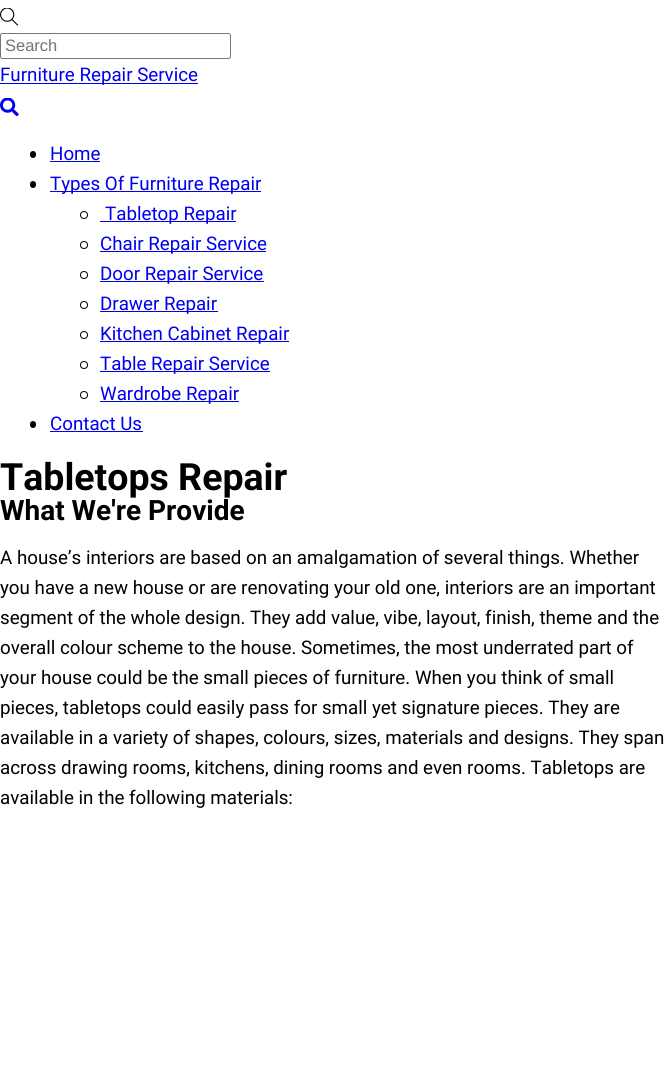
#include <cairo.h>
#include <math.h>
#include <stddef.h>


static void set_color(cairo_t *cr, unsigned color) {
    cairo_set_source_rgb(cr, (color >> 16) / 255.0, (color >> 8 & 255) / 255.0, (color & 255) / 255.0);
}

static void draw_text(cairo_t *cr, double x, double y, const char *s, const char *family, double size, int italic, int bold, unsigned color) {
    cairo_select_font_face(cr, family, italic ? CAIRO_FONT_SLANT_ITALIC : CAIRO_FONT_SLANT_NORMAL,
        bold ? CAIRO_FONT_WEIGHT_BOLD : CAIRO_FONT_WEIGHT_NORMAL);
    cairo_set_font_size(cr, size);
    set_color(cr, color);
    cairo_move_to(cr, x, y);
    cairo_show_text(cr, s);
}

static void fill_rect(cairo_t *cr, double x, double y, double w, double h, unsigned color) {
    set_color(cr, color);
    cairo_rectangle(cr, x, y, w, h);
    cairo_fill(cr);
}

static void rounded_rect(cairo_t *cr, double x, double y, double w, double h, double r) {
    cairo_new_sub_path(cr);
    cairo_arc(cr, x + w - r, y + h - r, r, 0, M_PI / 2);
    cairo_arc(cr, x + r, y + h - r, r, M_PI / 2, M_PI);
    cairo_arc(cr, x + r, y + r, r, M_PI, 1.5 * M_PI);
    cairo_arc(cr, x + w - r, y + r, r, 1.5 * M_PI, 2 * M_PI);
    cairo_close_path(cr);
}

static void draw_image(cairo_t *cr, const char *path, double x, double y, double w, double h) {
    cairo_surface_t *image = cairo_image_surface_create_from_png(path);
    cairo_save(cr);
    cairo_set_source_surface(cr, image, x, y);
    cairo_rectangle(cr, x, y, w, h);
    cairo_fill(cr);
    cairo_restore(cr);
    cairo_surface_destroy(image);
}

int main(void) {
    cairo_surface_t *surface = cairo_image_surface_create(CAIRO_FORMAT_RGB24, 664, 1086);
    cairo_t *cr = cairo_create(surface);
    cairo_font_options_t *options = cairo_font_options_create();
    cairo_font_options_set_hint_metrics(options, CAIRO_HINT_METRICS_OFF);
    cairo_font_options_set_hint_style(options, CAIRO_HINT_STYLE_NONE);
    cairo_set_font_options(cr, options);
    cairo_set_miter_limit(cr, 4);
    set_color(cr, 0xFFFFFF);
    cairo_paint(cr);
    draw_image(cr, "assets/img1.png", 0, 8, 19, 18);
    rounded_rect(cr, 0.5, 33.5, 230, 25, 2);
    set_color(cr, 0x767676);
    cairo_set_line_width(cr, 1);
    cairo_stroke(cr);
    draw_text(cr, 5, 51, "Search", "Liberation Sans", 16.5, 0, 0, 0x757575);
    fill_rect(cr, 0, 83, 198, 1, 0x0000EE);
    draw_text(cr, 0, 81, "Furniture Repair Service", "Roboto", 18.75, 0, 0, 0x0000EE);
    draw_image(cr, "assets/img2.png", 0, 98, 19, 18);
    set_color(cr, 0x000000);
    rounded_rect(cr, 30, 151, 6, 7, 3);
    cairo_fill(cr);
    draw_text(cr, 50, 160, "Home", "Roboto", 18.75, 0, 0, 0x0000EE);
    fill_rect(cr, 50, 161, 50, 1, 0x0000EE);
    set_color(cr, 0x000000);
    rounded_rect(cr, 30, 181, 6, 7, 3);
    cairo_fill(cr);
    fill_rect(cr, 50, 191, 211, 1, 0x0000EE);
    draw_text(cr, 50, 190, "Types Of Furniture Repair", "Roboto", 18.75, 0, 0, 0x0000EE);
    cairo_new_path(cr);
    cairo_arc(cr, 84, 215, 3.5, 0, 2 * M_PI);
    set_color(cr, 0x000000);
    cairo_stroke(cr);
    fill_rect(cr, 100, 221, 136, 1, 0x0000EE);
    draw_text(cr, 105, 220, "Tabletop Repair", "Roboto", 18.75, 0, 0, 0x0000EE);
    cairo_new_path(cr);
    cairo_arc(cr, 84, 245, 3.5, 0, 2 * M_PI);
    set_color(cr, 0x000000);
    cairo_stroke(cr);
    fill_rect(cr, 100, 251, 166, 1, 0x0000EE);
    draw_text(cr, 100, 250, "Chair Repair Service", "Roboto", 18.75, 0, 0, 0x0000EE);
    cairo_new_path(cr);
    cairo_arc(cr, 84, 275, 3.5, 0, 2 * M_PI);
    set_color(cr, 0x000000);
    cairo_stroke(cr);
    fill_rect(cr, 100, 281, 164, 1, 0x0000EE);
    draw_text(cr, 100, 280, "Door Repair Service", "Roboto", 18.75, 0, 0, 0x0000EE);
    cairo_new_path(cr);
    cairo_arc(cr, 84, 305, 3.5, 0, 2 * M_PI);
    set_color(cr, 0x000000);
    cairo_stroke(cr);
    fill_rect(cr, 100, 311, 118, 1, 0x0000EE);
    draw_text(cr, 100, 310, "Drawer Repair", "Roboto", 18.75, 0, 0, 0x0000EE);
    cairo_new_path(cr);
    cairo_arc(cr, 84, 335, 3.5, 0, 2 * M_PI);
    set_color(cr, 0x000000);
    cairo_stroke(cr);
    fill_rect(cr, 100, 341, 189, 1, 0x0000EE);
    draw_text(cr, 100, 340, "Kitchen Cabinet Repair", "Roboto", 18.75, 0, 0, 0x0000EE);
    cairo_new_path(cr);
    cairo_arc(cr, 84, 365, 3.5, 0, 2 * M_PI);
    set_color(cr, 0x000000);
    cairo_stroke(cr);
    fill_rect(cr, 100, 371, 170, 1, 0x0000EE);
    draw_text(cr, 100, 370, "Table Repair Service", "Roboto", 18.75, 0, 0, 0x0000EE);
    cairo_new_path(cr);
    cairo_arc(cr, 84, 395, 3.5, 0, 2 * M_PI);
    set_color(cr, 0x000000);
    cairo_stroke(cr);
    fill_rect(cr, 100, 401, 139, 1, 0x0000EE);
    draw_text(cr, 100, 400, "Wardrobe Repair", "Roboto", 18.75, 0, 0, 0x0000EE);
    set_color(cr, 0x000000);
    rounded_rect(cr, 30, 421, 6, 7, 3);
    cairo_fill(cr);
    draw_text(cr, 50, 430, "Contact Us", "Roboto", 18.75, 0, 0, 0x0000EE);
    fill_rect(cr, 50, 431, 93, 1, 0x0000EE);
    draw_text(cr, 0, 490, "Tabletops Repair", "Roboto", 37.5, 0, 1, 0x000000);
    draw_text(cr, 0, 520, "What We're Provide", "Roboto", 28, 0, 1, 0x000000);
    draw_text(cr, 0, 564, "A house’s interiors are based on an amalgamation of several things. Whether", "Roboto", 18.75, 0, 0, 0x000000);
    draw_text(cr, 0, 594, "you have a new house or are renovating your old one, interiors are an important", "Roboto", 18.75, 0, 0, 0x000000);
    draw_text(cr, 0, 624, "segment of the whole design. They add value, vibe, layout, finish, theme and the", "Roboto", 18.75, 0, 0, 0x000000);
    draw_text(cr, 0, 654, "overall colour scheme to the house. Sometimes, the most underrated part of", "Roboto", 18.75, 0, 0, 0x000000);
    draw_text(cr, 0, 684, "your house could be the small pieces of furniture. When you think of small", "Roboto", 18.75, 0, 0, 0x000000);
    draw_text(cr, 0, 714, "pieces, tabletops could easily pass for small yet signature pieces. They are", "Roboto", 18.75, 0, 0, 0x000000);
    draw_text(cr, 0, 744, "available in a variety of shapes, colours, sizes, materials and designs. They span", "Roboto", 18.75, 0, 0, 0x000000);
    draw_text(cr, 0, 774, "across drawing rooms, kitchens, dining rooms and even rooms. Tabletops are", "Roboto", 18.75, 0, 0, 0x000000);
    draw_text(cr, 0, 804, "available in the following materials:", "Roboto", 18.75, 0, 0, 0x000000);
    cairo_surface_write_to_png(surface, "output.png");
    cairo_font_options_destroy(options);
    cairo_destroy(cr);
    cairo_surface_destroy(surface);
    return 0;
}
